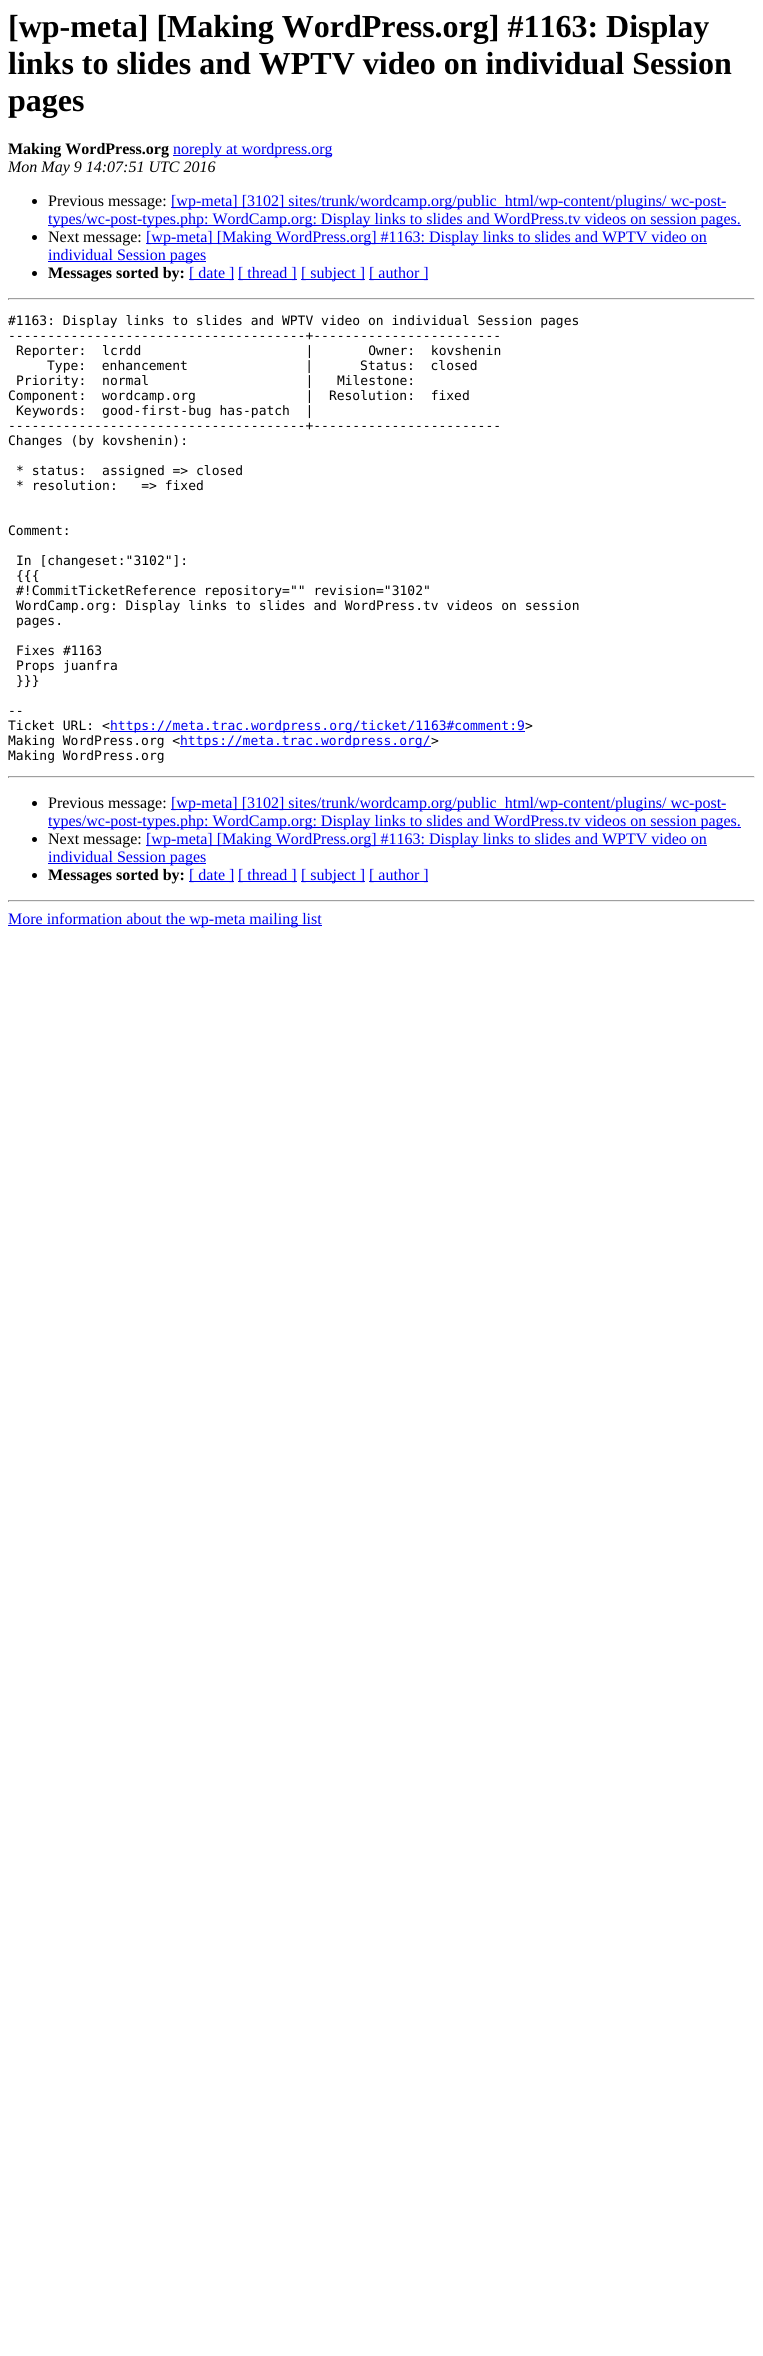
#include <cairo.h>
#include <math.h>
#include <stddef.h>


static void set_color(cairo_t *cr, unsigned color) {
    cairo_set_source_rgb(cr, (color >> 16) / 255.0, (color >> 8 & 255) / 255.0, (color & 255) / 255.0);
}

static void draw_text(cairo_t *cr, double x, double y, const char *s, const char *family, double size, int italic, int bold, unsigned color) {
    cairo_select_font_face(cr, family, italic ? CAIRO_FONT_SLANT_ITALIC : CAIRO_FONT_SLANT_NORMAL,
        bold ? CAIRO_FONT_WEIGHT_BOLD : CAIRO_FONT_WEIGHT_NORMAL);
    cairo_set_font_size(cr, size);
    set_color(cr, color);
    cairo_move_to(cr, x, y);
    cairo_show_text(cr, s);
}

static void fill_rect(cairo_t *cr, double x, double y, double w, double h, unsigned color) {
    set_color(cr, color);
    cairo_rectangle(cr, x, y, w, h);
    cairo_fill(cr);
}

int main(void) {
    cairo_surface_t *surface = cairo_image_surface_create(CAIRO_FORMAT_RGB24, 763, 2356);
    cairo_t *cr = cairo_create(surface);
    cairo_font_options_t *options = cairo_font_options_create();
    cairo_font_options_set_hint_metrics(options, CAIRO_HINT_METRICS_OFF);
    cairo_font_options_set_hint_style(options, CAIRO_HINT_STYLE_NONE);
    cairo_set_font_options(cr, options);
    cairo_set_miter_limit(cr, 4);
    set_color(cr, 0xFFFFFF);
    cairo_paint(cr);
    draw_text(cr, 8, 37, "[wp-meta] [Making WordPress.org] #1163: Display", "Liberation Serif", 32, 0, 1, 0x000000);
    draw_text(cr, 8, 74, "links to slides and WPTV video on individual Session", "Liberation Serif", 32, 0, 1, 0x000000);
    draw_text(cr, 8, 111, "pages", "Liberation Serif", 32, 0, 1, 0x000000);
    draw_text(cr, 8, 154, "Making WordPress.org", "Liberation Serif", 16, 0, 1, 0x000000);
    fill_rect(cr, 173, 155, 159, 1, 0x0000EE);
    draw_text(cr, 173, 154, "noreply at wordpress.org", "Liberation Serif", 16, 0, 0, 0x0000EE);
    draw_text(cr, 8, 172, "Mon May 9 14:07:51 UTC 2016", "Liberation Serif", 16, 1, 0, 0x000000);
    cairo_new_path(cr);
    cairo_arc(cr, 34.5, 201.5, 2.5, 0, 2 * M_PI);
    cairo_fill(cr);
    draw_text(cr, 48, 206, "Previous message:", "Liberation Serif", 16, 0, 0, 0x000000);
    fill_rect(cr, 171, 207, 555, 1, 0x0000EE);
    draw_text(cr, 171, 206, "[wp-meta] [3102] sites/trunk/wordcamp.org/public_html/wp-content/plugins/ wc-post-", "Liberation Serif", 16, 0, 0, 0x0000EE);
    fill_rect(cr, 48, 225, 693, 1, 0x0000EE);
    draw_text(cr, 48, 224, "types/wc-post-types.php: WordCamp.org: Display links to slides and WordPress.tv videos on session pages.", "Liberation Serif", 16, 0, 0, 0x0000EE);
    set_color(cr, 0x000000);
    cairo_new_path(cr);
    cairo_arc(cr, 34.5, 237.5, 2.5, 0, 2 * M_PI);
    cairo_fill(cr);
    draw_text(cr, 48, 242, "Next message:", "Liberation Serif", 16, 0, 0, 0x000000);
    fill_rect(cr, 146, 243, 561, 1, 0x0000EE);
    draw_text(cr, 146, 242, "[wp-meta] [Making WordPress.org] #1163: Display links to slides and WPTV video on", "Liberation Serif", 16, 0, 0, 0x0000EE);
    fill_rect(cr, 48, 261, 158, 1, 0x0000EE);
    draw_text(cr, 48, 260, "individual Session pages", "Liberation Serif", 16, 0, 0, 0x0000EE);
    set_color(cr, 0x000000);
    cairo_new_path(cr);
    cairo_arc(cr, 34.5, 273.5, 2.5, 0, 2 * M_PI);
    cairo_fill(cr);
    draw_text(cr, 48, 278, "Messages sorted by:", "Liberation Serif", 16, 0, 1, 0x000000);
    fill_rect(cr, 189, 279, 45, 1, 0x0000EE);
    draw_text(cr, 189, 278, "[ date ]", "Liberation Serif", 16, 0, 0, 0x0000EE);
    fill_rect(cr, 238, 279, 59, 1, 0x0000EE);
    draw_text(cr, 238, 278, "[ thread ]", "Liberation Serif", 16, 0, 0, 0x0000EE);
    fill_rect(cr, 301, 279, 64, 1, 0x0000EE);
    draw_text(cr, 301, 278, "[ subject ]", "Liberation Serif", 16, 0, 0, 0x0000EE);
    fill_rect(cr, 369, 279, 59, 1, 0x0000EE);
    draw_text(cr, 369, 278, "[ author ]", "Liberation Serif", 16, 0, 0, 0x0000EE);
    fill_rect(cr, 8, 298, 747, 1, 0x9F9F9F);
    fill_rect(cr, 754, 298, 1, 2, 0xEEEEEE);
    fill_rect(cr, 8, 299, 747, 1, 0xEEEEEE);
    fill_rect(cr, 8, 298, 1, 2, 0x9F9F9F);
    draw_text(cr, 8, 325, "#1163: Display links to slides and WPTV video on individual Session pages", "DejaVu Sans Mono", 13, 0, 0, 0x000000);
    draw_text(cr, 8, 340, "--------------------------------------+------------------------", "DejaVu Sans Mono", 13, 0, 0, 0x000000);
    draw_text(cr, 16, 355, "Reporter:  lcrdd                     |       Owner:  kovshenin", "DejaVu Sans Mono", 13, 0, 0, 0x000000);
    draw_text(cr, 47, 370, "Type:  enhancement               |      Status:  closed", "DejaVu Sans Mono", 13, 0, 0, 0x000000);
    draw_text(cr, 16, 385, "Priority:  normal                    |   Milestone:", "DejaVu Sans Mono", 13, 0, 0, 0x000000);
    draw_text(cr, 8, 400, "Component:  wordcamp.org              |  Resolution:  fixed", "DejaVu Sans Mono", 13, 0, 0, 0x000000);
    draw_text(cr, 16, 415, "Keywords:  good-first-bug has-patch  |", "DejaVu Sans Mono", 13, 0, 0, 0x000000);
    draw_text(cr, 8, 430, "--------------------------------------+------------------------", "DejaVu Sans Mono", 13, 0, 0, 0x000000);
    draw_text(cr, 8, 445, "Changes (by kovshenin):", "DejaVu Sans Mono", 13, 0, 0, 0x000000);
    draw_text(cr, 16, 475, "* status:  assigned => closed", "DejaVu Sans Mono", 13, 0, 0, 0x000000);
    draw_text(cr, 16, 490, "* resolution:   => fixed", "DejaVu Sans Mono", 13, 0, 0, 0x000000);
    draw_text(cr, 8, 535, "Comment:", "DejaVu Sans Mono", 13, 0, 0, 0x000000);
    draw_text(cr, 16, 565, "In [changeset:\"3102\"]:", "DejaVu Sans Mono", 13, 0, 0, 0x000000);
    draw_text(cr, 16, 580, "{{{", "DejaVu Sans Mono", 13, 0, 0, 0x000000);
    draw_text(cr, 16, 595, "#!CommitTicketReference repository=\"\" revision=\"3102\"", "DejaVu Sans Mono", 13, 0, 0, 0x000000);
    draw_text(cr, 16, 610, "WordCamp.org: Display links to slides and WordPress.tv videos on session", "DejaVu Sans Mono", 13, 0, 0, 0x000000);
    draw_text(cr, 16, 625, "pages.", "DejaVu Sans Mono", 13, 0, 0, 0x000000);
    draw_text(cr, 16, 655, "Fixes #1163", "DejaVu Sans Mono", 13, 0, 0, 0x000000);
    draw_text(cr, 16, 670, "Props juanfra", "DejaVu Sans Mono", 13, 0, 0, 0x000000);
    draw_text(cr, 16, 685, "}}}", "DejaVu Sans Mono", 13, 0, 0, 0x000000);
    draw_text(cr, 8, 715, "--", "DejaVu Sans Mono", 13, 0, 0, 0x000000);
    draw_text(cr, 8, 730, "Ticket URL: <", "DejaVu Sans Mono", 13, 0, 0, 0x000000);
    fill_rect(cr, 110, 731, 415, 1, 0x0000EE);
    draw_text(cr, 110, 730, "https://meta.trac.wordpress.org/ticket/1163#comment:9", "DejaVu Sans Mono", 13, 0, 0, 0x0000EE);
    draw_text(cr, 525, 730, ">", "DejaVu Sans Mono", 13, 0, 0, 0x000000);
    draw_text(cr, 8, 745, "Making WordPress.org <", "DejaVu Sans Mono", 13, 0, 0, 0x000000);
    fill_rect(cr, 180, 746, 251, 1, 0x0000EE);
    draw_text(cr, 180, 745, "https://meta.trac.wordpress.org/", "DejaVu Sans Mono", 13, 0, 0, 0x0000EE);
    draw_text(cr, 431, 745, ">", "DejaVu Sans Mono", 13, 0, 0, 0x000000);
    draw_text(cr, 8, 760, "Making WordPress.org", "DejaVu Sans Mono", 13, 0, 0, 0x000000);
    fill_rect(cr, 8, 776, 747, 1, 0x9F9F9F);
    fill_rect(cr, 754, 776, 1, 2, 0xEEEEEE);
    fill_rect(cr, 8, 777, 747, 1, 0xEEEEEE);
    fill_rect(cr, 8, 776, 1, 2, 0x9F9F9F);
    set_color(cr, 0x000000);
    cairo_new_path(cr);
    cairo_arc(cr, 34.5, 803.5, 2.5, 0, 2 * M_PI);
    cairo_fill(cr);
    draw_text(cr, 48, 808, "Previous message:", "Liberation Serif", 16, 0, 0, 0x000000);
    fill_rect(cr, 171, 809, 555, 1, 0x0000EE);
    draw_text(cr, 171, 808, "[wp-meta] [3102] sites/trunk/wordcamp.org/public_html/wp-content/plugins/ wc-post-", "Liberation Serif", 16, 0, 0, 0x0000EE);
    fill_rect(cr, 48, 827, 693, 1, 0x0000EE);
    draw_text(cr, 48, 826, "types/wc-post-types.php: WordCamp.org: Display links to slides and WordPress.tv videos on session pages.", "Liberation Serif", 16, 0, 0, 0x0000EE);
    set_color(cr, 0x000000);
    cairo_new_path(cr);
    cairo_arc(cr, 34.5, 839.5, 2.5, 0, 2 * M_PI);
    cairo_fill(cr);
    draw_text(cr, 48, 844, "Next message:", "Liberation Serif", 16, 0, 0, 0x000000);
    fill_rect(cr, 146, 845, 561, 1, 0x0000EE);
    draw_text(cr, 146, 844, "[wp-meta] [Making WordPress.org] #1163: Display links to slides and WPTV video on", "Liberation Serif", 16, 0, 0, 0x0000EE);
    fill_rect(cr, 48, 863, 158, 1, 0x0000EE);
    draw_text(cr, 48, 862, "individual Session pages", "Liberation Serif", 16, 0, 0, 0x0000EE);
    set_color(cr, 0x000000);
    cairo_new_path(cr);
    cairo_arc(cr, 34.5, 875.5, 2.5, 0, 2 * M_PI);
    cairo_fill(cr);
    draw_text(cr, 48, 880, "Messages sorted by:", "Liberation Serif", 16, 0, 1, 0x000000);
    fill_rect(cr, 189, 881, 45, 1, 0x0000EE);
    draw_text(cr, 189, 880, "[ date ]", "Liberation Serif", 16, 0, 0, 0x0000EE);
    fill_rect(cr, 238, 881, 59, 1, 0x0000EE);
    draw_text(cr, 238, 880, "[ thread ]", "Liberation Serif", 16, 0, 0, 0x0000EE);
    fill_rect(cr, 301, 881, 64, 1, 0x0000EE);
    draw_text(cr, 301, 880, "[ subject ]", "Liberation Serif", 16, 0, 0, 0x0000EE);
    fill_rect(cr, 369, 881, 59, 1, 0x0000EE);
    draw_text(cr, 369, 880, "[ author ]", "Liberation Serif", 16, 0, 0, 0x0000EE);
    fill_rect(cr, 8, 900, 747, 1, 0x9F9F9F);
    fill_rect(cr, 754, 900, 1, 2, 0xEEEEEE);
    fill_rect(cr, 8, 901, 747, 1, 0xEEEEEE);
    fill_rect(cr, 8, 900, 1, 2, 0x9F9F9F);
    fill_rect(cr, 8, 925, 314, 1, 0x0000EE);
    draw_text(cr, 8, 924, "More information about the wp-meta mailing list", "Liberation Serif", 16, 0, 0, 0x0000EE);
    cairo_surface_write_to_png(surface, "output.png");
    cairo_font_options_destroy(options);
    cairo_destroy(cr);
    cairo_surface_destroy(surface);
    return 0;
}
